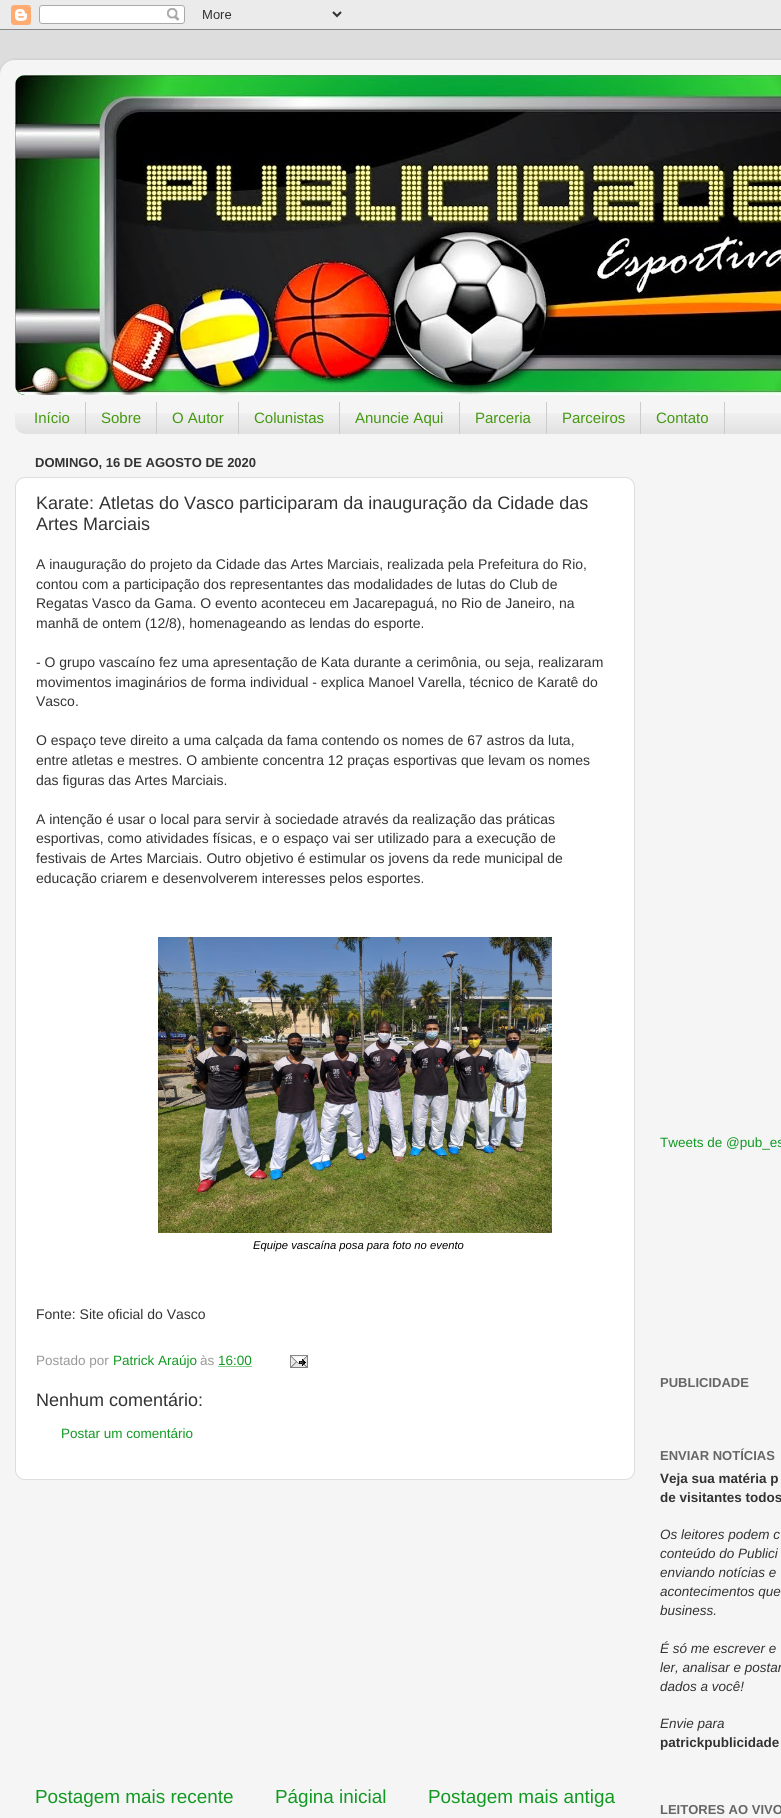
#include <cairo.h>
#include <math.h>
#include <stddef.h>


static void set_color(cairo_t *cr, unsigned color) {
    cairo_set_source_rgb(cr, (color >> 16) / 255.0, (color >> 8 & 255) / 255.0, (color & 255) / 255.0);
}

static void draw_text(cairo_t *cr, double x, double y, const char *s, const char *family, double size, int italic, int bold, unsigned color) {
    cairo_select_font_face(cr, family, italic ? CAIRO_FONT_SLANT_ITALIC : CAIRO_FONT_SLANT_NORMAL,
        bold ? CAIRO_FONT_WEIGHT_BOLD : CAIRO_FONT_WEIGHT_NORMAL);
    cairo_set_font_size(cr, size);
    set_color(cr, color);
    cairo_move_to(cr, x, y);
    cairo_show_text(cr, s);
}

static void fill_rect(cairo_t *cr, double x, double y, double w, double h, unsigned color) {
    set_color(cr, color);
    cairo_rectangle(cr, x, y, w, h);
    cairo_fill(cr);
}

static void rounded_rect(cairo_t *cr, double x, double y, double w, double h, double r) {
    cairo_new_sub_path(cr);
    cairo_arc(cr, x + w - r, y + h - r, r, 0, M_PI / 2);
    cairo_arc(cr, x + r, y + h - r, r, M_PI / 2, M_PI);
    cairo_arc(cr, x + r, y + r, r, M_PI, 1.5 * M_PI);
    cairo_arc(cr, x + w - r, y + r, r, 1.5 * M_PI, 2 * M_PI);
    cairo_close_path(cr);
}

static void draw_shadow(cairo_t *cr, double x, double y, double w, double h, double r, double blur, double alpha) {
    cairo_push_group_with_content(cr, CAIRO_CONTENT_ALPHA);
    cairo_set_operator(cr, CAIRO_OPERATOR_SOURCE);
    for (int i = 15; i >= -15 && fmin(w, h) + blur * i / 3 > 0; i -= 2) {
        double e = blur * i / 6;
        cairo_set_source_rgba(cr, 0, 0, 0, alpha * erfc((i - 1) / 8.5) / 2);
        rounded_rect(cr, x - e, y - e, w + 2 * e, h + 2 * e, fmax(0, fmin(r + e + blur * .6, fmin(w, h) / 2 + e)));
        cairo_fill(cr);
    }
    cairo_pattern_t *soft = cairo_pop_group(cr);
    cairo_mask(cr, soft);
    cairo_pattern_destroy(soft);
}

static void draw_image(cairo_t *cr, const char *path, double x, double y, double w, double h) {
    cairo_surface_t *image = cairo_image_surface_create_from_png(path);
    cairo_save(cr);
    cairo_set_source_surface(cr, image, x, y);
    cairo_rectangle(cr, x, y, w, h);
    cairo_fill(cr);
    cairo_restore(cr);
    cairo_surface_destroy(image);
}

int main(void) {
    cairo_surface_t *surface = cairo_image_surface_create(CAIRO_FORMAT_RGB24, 781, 1818);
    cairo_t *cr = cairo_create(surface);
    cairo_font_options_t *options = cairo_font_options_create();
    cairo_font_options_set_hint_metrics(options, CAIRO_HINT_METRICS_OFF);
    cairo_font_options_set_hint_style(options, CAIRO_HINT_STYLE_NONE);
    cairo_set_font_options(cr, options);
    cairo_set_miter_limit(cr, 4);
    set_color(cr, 0xDDDDDD);
    cairo_paint(cr);
    draw_image(cr, "assets/img1.png", 0, 0, 781, 30);
    cairo_save(cr);
    cairo_set_fill_rule(cr, CAIRO_FILL_RULE_EVEN_ODD);
    cairo_new_path(cr);
    cairo_move_to(cr, 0, 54);
    cairo_line_to(cr, 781, 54);
    cairo_line_to(cr, 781, 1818);
    cairo_line_to(cr, 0, 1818);
    cairo_close_path(cr);
    cairo_move_to(cr, 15, 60);
    cairo_line_to(cr, 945, 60);
    cairo_curve_to(cr, 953.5, 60, 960, 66.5, 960, 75);
    cairo_line_to(cr, 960, 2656);
    cairo_curve_to(cr, 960, 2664.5, 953.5, 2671, 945, 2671);
    cairo_line_to(cr, 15, 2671);
    cairo_curve_to(cr, 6.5, 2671, 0, 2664.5, 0, 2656);
    cairo_line_to(cr, 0, 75);
    cairo_curve_to(cr, 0, 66.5, 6.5, 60, 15, 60);
    cairo_close_path(cr);
    cairo_clip(cr);
    set_color(cr, 0x000000);
    draw_shadow(cr, 0, 60, 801, 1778, 15, 1.5, 0.15);
    cairo_restore(cr);
    draw_image(cr, "assets/img2.png", 0, 60, 781, 1758);
    set_color(cr, 0x119922);
    rounded_rect(cr, 15, 75, 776, 320, 10);
    cairo_fill(cr);
    draw_image(cr, "assets/img3.png", 15, 75, 10, 10);
    draw_image(cr, "assets/img4.png", 15, 75, 766, 320);
    draw_image(cr, "assets/img5.png", 15, 413, 766, 21);
    fill_rect(cr, 85, 402, 1, 32, 0xCCCCCC);
    draw_text(cr, 34, 423, "Início", "Liberation Sans", 15, 0, 0, 0x449911);
    fill_rect(cr, 156, 402, 1, 32, 0xCCCCCC);
    draw_text(cr, 101, 423, "Sobre", "Liberation Sans", 15, 0, 0, 0x449911);
    fill_rect(cr, 238, 402, 1, 32, 0xCCCCCC);
    draw_text(cr, 172, 423, "O Autor", "Liberation Sans", 15, 0, 0, 0x449911);
    fill_rect(cr, 339, 402, 1, 32, 0xCCCCCC);
    draw_text(cr, 254, 423, "Colunistas", "Liberation Sans", 15, 0, 0, 0x449911);
    fill_rect(cr, 459, 402, 1, 32, 0xCCCCCC);
    draw_text(cr, 355, 423, "Anuncie Aqui", "Liberation Sans", 15, 0, 0, 0x449911);
    fill_rect(cr, 546, 402, 1, 32, 0xCCCCCC);
    draw_text(cr, 475, 423, "Parceria", "Liberation Sans", 15, 0, 0, 0x449911);
    fill_rect(cr, 640, 402, 1, 32, 0xCCCCCC);
    draw_text(cr, 562, 423, "Parceiros", "Liberation Sans", 15, 0, 0, 0x449911);
    fill_rect(cr, 724, 402, 1, 32, 0xCCCCCC);
    draw_text(cr, 656, 423, "Contato", "Liberation Sans", 15, 0, 0, 0x449911);
    draw_text(cr, 35, 467, "DOMINGO, 16 DE AGOSTO DE 2020", "Liberation Sans", 13, 0, 1, 0x333333);
    set_color(cr, 0xFFFFFF);
    rounded_rect(cr, 15.5, 477.5, 619, 1002, 9.5);
    cairo_fill_preserve(cr);
    set_color(cr, 0xDDDDDD);
    cairo_set_line_width(cr, 1);
    cairo_stroke(cr);
    draw_text(cr, 36, 509, "Karate: Atletas do Vasco participaram da inauguração da Cidade das", "Liberation Sans", 18, 0, 0, 0x333333);
    draw_text(cr, 36, 530, "Artes Marciais", "Liberation Sans", 18, 0, 0, 0x333333);
    draw_text(cr, 36, 569, "A inauguração do projeto da Cidade das Artes Marciais, realizada pela Prefeitura do Rio,", "Liberation Sans", 14, 0, 0, 0x333333);
    draw_text(cr, 36, 589, "contou com a participação dos representantes das modalidades de lutas do Club de", "Liberation Sans", 14, 0, 0, 0x333333);
    draw_text(cr, 36, 608, "Regatas Vasco da Gama. O evento aconteceu em Jacarepaguá, no Rio de Janeiro, na", "Liberation Sans", 14, 0, 0, 0x333333);
    draw_text(cr, 36, 628, "manhã de ontem (12/8), homenageando as lendas do esporte.", "Liberation Sans", 14, 0, 0, 0x333333);
    draw_text(cr, 36, 667, "- O grupo vascaíno fez uma apresentação de Kata durante a cerimônia, ou seja, realizaram", "Liberation Sans", 14, 0, 0, 0x333333);
    draw_text(cr, 36, 687, "movimentos imaginários de forma individual - explica Manoel Varella, técnico de Karatê do", "Liberation Sans", 14, 0, 0, 0x333333);
    draw_text(cr, 36, 706, "Vasco.", "Liberation Sans", 14, 0, 0, 0x333333);
    draw_text(cr, 36, 745, "O espaço teve direito a uma calçada da fama contendo os nomes de 67 astros da luta,", "Liberation Sans", 14, 0, 0, 0x333333);
    draw_text(cr, 36, 765, "entre atletas e mestres. O ambiente concentra 12 praças esportivas que levam os nomes", "Liberation Sans", 14, 0, 0, 0x333333);
    draw_text(cr, 36, 785, "das figuras das Artes Marciais.", "Liberation Sans", 14, 0, 0, 0x333333);
    draw_text(cr, 36, 824, "A intenção é usar o local para servir à sociedade através da realização das práticas", "Liberation Sans", 14, 0, 0, 0x333333);
    draw_text(cr, 36, 843, "esportivas, como atividades físicas, e o espaço vai ser utilizado para a execução de", "Liberation Sans", 14, 0, 0, 0x333333);
    draw_text(cr, 36, 863, "festivais de Artes Marciais. Outro objetivo é estimular os jovens da rede municipal de", "Liberation Sans", 14, 0, 0, 0x333333);
    draw_text(cr, 36, 883, "educação criarem e desenvolverem interesses pelos esportes.", "Liberation Sans", 14, 0, 0, 0x333333);
    draw_image(cr, "assets/img6.png", 158, 937, 394, 296);
    draw_text(cr, 253, 1249, "Equipe vascaína posa para foto no evento", "Liberation Sans", 11.25, 1, 0, 0x000000);
    draw_text(cr, 36, 1319, "Fonte: Site oficial do Vasco", "Liberation Sans", 14, 0, 0, 0x333333);
    draw_text(cr, 36, 1365, "Postado por", "Liberation Sans", 13.5, 0, 0, 0x999999);
    draw_text(cr, 113, 1365, "Patrick Araújo", "Liberation Sans", 13.5, 0, 0, 0x119922);
    draw_text(cr, 200, 1365, "às", "Liberation Sans", 13.5, 0, 0, 0x999999);
    draw_text(cr, 218, 1365, "16:00", "Liberation Sans", 13.5, 0, 0, 0x119922);
    cairo_new_path(cr);
    cairo_move_to(cr, 218.5, 1366.5);
    cairo_line_to(cr, 252, 1366.5);
    cairo_set_dash(cr, (double[]){1, 1}, 2, 0);
    cairo_stroke(cr);
    draw_image(cr, "assets/img7.png", 290, 1355, 18, 13);
    draw_text(cr, 36, 1406, "Nenhum comentário:", "Liberation Sans", 18, 0, 0, 0x333333);
    draw_text(cr, 61, 1438, "Postar um comentário", "Liberation Sans", 13.5, 0, 0, 0x119922);
    draw_text(cr, 35, 1803, "Postagem mais recente", "Liberation Sans", 18.9, 0, 0, 0x119922);
    draw_text(cr, 275, 1803, "Página inicial", "Liberation Sans", 18.9, 0, 0, 0x119922);
    draw_text(cr, 428, 1803, "Postagem mais antiga", "Liberation Sans", 18.9, 0, 0, 0x119922);
    draw_text(cr, 660, 1147, "Tweets de @pub_es", "Liberation Sans", 13.5, 0, 0, 0x119922);
    draw_text(cr, 660, 1387, "PUBLICIDADE", "Liberation Sans", 13, 0, 1, 0x666666);
    draw_text(cr, 660, 1460, "ENVIAR NOTÍCIAS", "Liberation Sans", 13, 0, 1, 0x666666);
    draw_text(cr, 660, 1483, "Veja sua matéria p", "Liberation Sans", 13.5, 0, 1, 0x333333);
    draw_text(cr, 660, 1502, "de visitantes todos", "Liberation Sans", 13.5, 0, 1, 0x333333);
    draw_text(cr, 660, 1539, "Os leitores podem c", "Liberation Sans", 13.5, 1, 0, 0x333333);
    draw_text(cr, 660, 1558, "conteúdo do Publici", "Liberation Sans", 13.5, 1, 0, 0x333333);
    draw_text(cr, 660, 1577, "enviando notícias e", "Liberation Sans", 13.5, 1, 0, 0x333333);
    draw_text(cr, 660, 1596, "acontecimentos que", "Liberation Sans", 13.5, 1, 0, 0x333333);
    draw_text(cr, 660, 1615, "business.", "Liberation Sans", 13.5, 1, 0, 0x333333);
    draw_text(cr, 660, 1653, "É só me escrever e", "Liberation Sans", 13.5, 1, 0, 0x333333);
    draw_text(cr, 660, 1672, "ler, analisar e postar", "Liberation Sans", 13.5, 1, 0, 0x333333);
    draw_text(cr, 660, 1691, "dados a você!", "Liberation Sans", 13.5, 1, 0, 0x333333);
    draw_text(cr, 660, 1728, "Envie para", "Liberation Sans", 13.5, 1, 0, 0x333333);
    draw_text(cr, 660, 1747, "patrickpublicidade", "Liberation Sans", 13.5, 0, 1, 0x333333);
    draw_text(cr, 660, 1814, "LEITORES AO VIVO", "Liberation Sans", 13, 0, 1, 0x666666);
    cairo_surface_write_to_png(surface, "output.png");
    cairo_font_options_destroy(options);
    cairo_destroy(cr);
    cairo_surface_destroy(surface);
    return 0;
}
